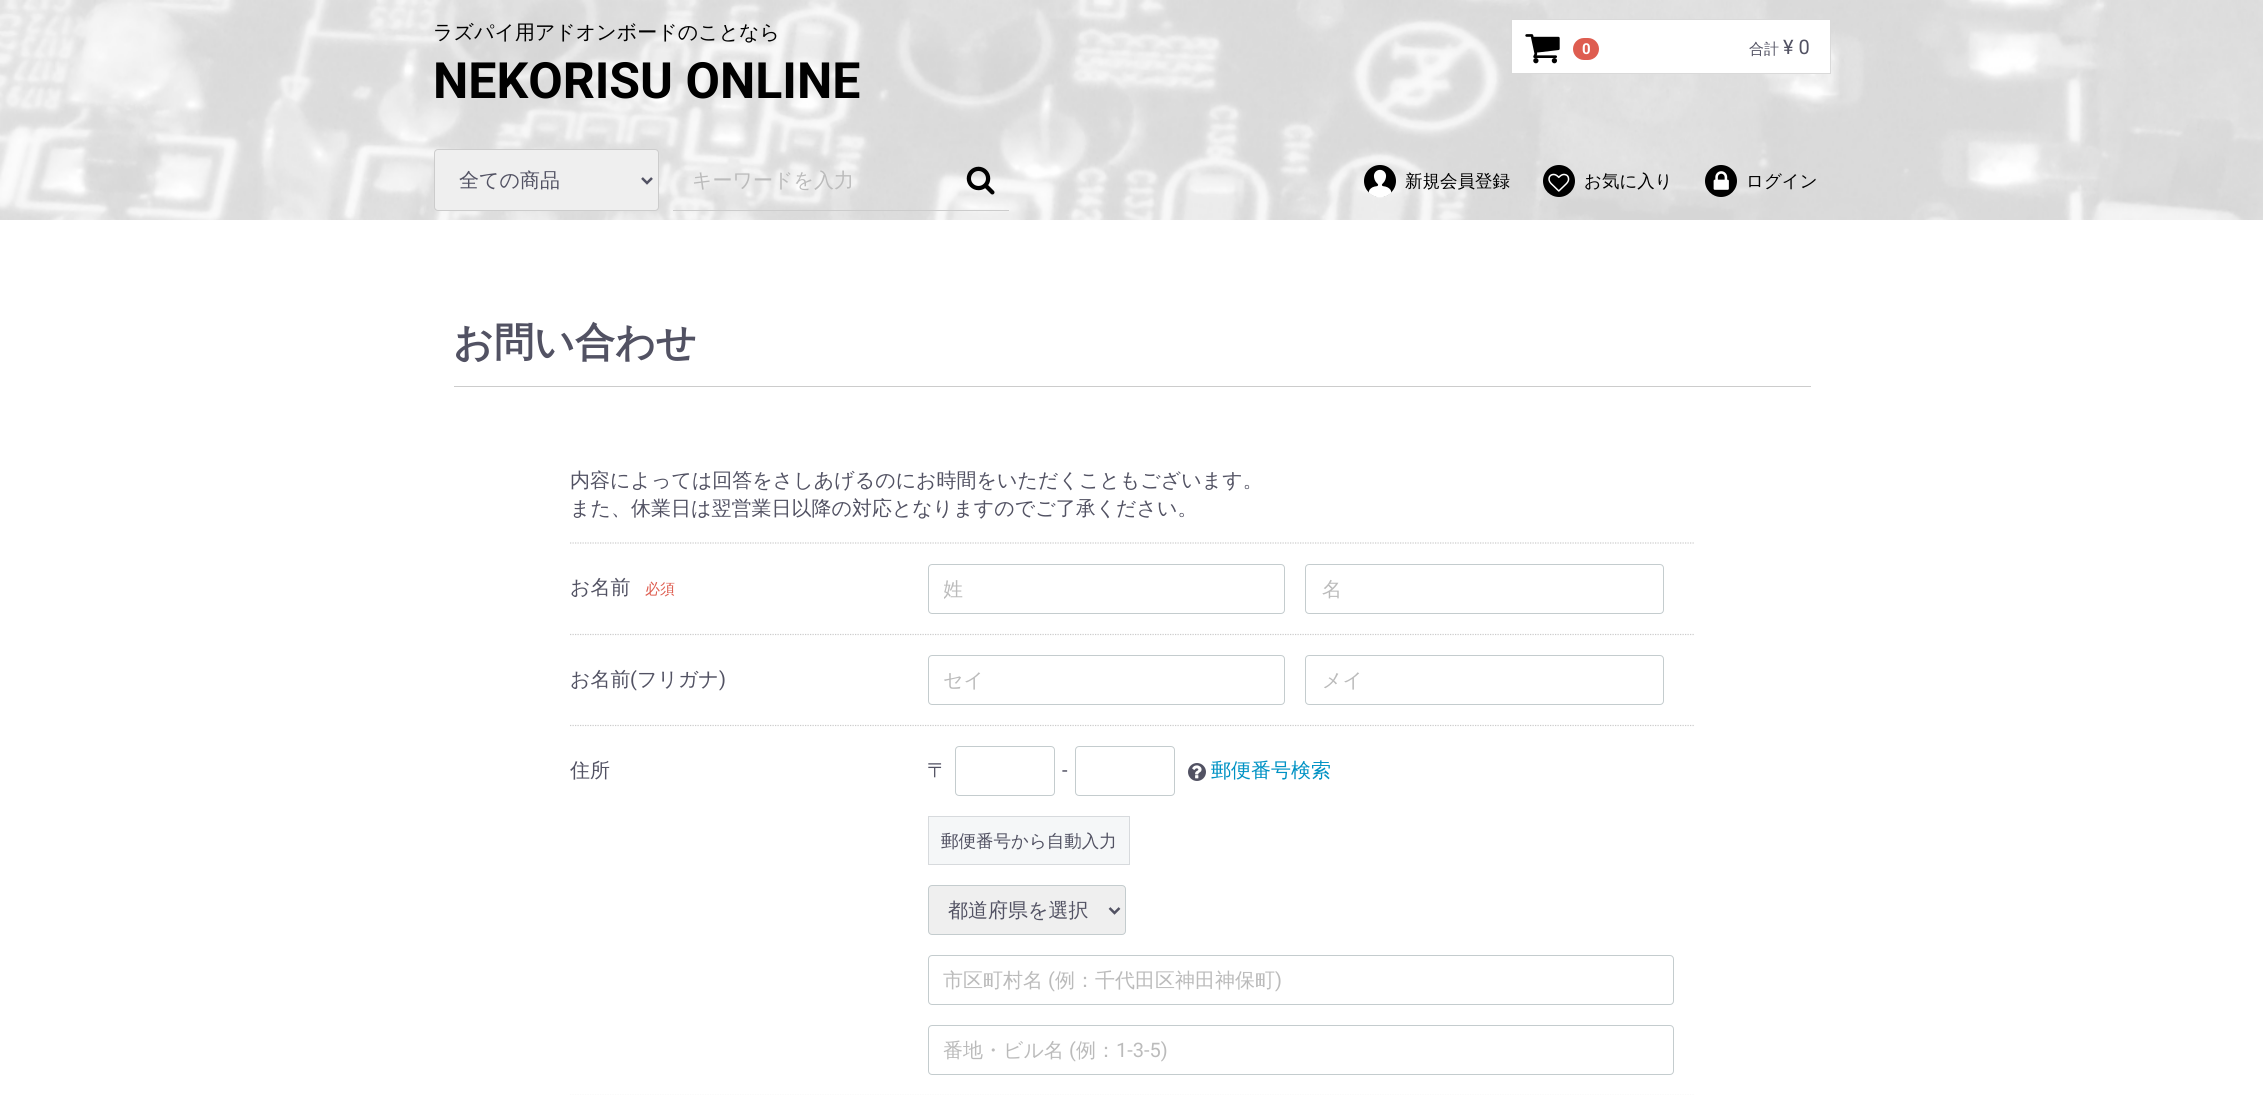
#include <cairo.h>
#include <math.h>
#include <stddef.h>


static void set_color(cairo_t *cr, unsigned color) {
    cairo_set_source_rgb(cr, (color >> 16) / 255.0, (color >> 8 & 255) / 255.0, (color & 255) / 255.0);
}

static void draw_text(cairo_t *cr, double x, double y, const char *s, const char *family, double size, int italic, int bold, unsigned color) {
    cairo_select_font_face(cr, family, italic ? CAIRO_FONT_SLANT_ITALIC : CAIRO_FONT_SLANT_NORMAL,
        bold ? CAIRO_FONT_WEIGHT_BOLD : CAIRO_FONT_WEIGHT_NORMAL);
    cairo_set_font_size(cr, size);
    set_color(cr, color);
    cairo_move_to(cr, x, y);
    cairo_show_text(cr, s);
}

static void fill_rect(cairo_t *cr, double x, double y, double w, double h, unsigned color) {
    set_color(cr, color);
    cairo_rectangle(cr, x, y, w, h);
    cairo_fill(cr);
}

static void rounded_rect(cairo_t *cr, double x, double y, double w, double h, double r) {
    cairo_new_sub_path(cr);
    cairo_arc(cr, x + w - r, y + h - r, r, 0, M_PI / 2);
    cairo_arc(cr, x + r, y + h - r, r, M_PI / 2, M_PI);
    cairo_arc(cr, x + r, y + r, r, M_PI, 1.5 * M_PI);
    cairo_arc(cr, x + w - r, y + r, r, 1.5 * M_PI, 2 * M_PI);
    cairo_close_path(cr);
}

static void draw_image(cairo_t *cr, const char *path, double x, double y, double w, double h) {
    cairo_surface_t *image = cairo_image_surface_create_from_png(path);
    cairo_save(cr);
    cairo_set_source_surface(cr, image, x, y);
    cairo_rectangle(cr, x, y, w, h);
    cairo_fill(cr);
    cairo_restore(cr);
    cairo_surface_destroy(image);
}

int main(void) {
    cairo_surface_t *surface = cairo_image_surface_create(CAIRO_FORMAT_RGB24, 2263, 1095);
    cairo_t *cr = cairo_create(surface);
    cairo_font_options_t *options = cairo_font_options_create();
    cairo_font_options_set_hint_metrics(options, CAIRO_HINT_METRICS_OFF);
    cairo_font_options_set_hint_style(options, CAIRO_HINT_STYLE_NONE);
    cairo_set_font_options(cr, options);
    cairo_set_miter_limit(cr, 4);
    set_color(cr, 0xFFFFFF);
    cairo_paint(cr);
    draw_image(cr, "assets/img1.png", 0, 0, 2263, 220);
    draw_text(cr, 433, 39, "ラズパイ用アドオンボードのことなら", "WenQuanYi Zen Hei Medium", 20, 0, 0, 0x000000);
    draw_text(cr, 433, 98, "NEKORISU ONLINE", "Roboto", 50, 0, 1, 0x000000);
    set_color(cr, 0xFFFFFF);
    cairo_rectangle(cr, 1511.5, 19.5, 319, 54);
    cairo_fill_preserve(cr);
    set_color(cr, 0xD9D9D9);
    cairo_set_line_width(cr, 1);
    cairo_stroke(cr);
    draw_image(cr, "assets/img2.png", 1525, 34, 35, 30);
    set_color(cr, 0xDE5D50);
    rounded_rect(cr, 1573, 38, 26, 22, 11);
    cairo_fill(cr);
    draw_text(cr, 1582, 54, "0", "Roboto", 15, 0, 1, 0xFFFFFF);
    draw_text(cr, 1749, 54, "合計", "WenQuanYi Zen Hei Medium", 15, 0, 0, 0x525263);
    draw_text(cr, 1783, 54, "¥ 0", "Roboto", 20, 0, 0, 0x525263);
    set_color(cr, 0xEFEFEF);
    rounded_rect(cr, 434.5, 149.5, 224, 61, 3.5);
    cairo_fill_preserve(cr);
    set_color(cr, 0xCCCCCC);
    cairo_stroke(cr);
    cairo_new_path(cr);
    cairo_move_to(cr, 642, 178);
    cairo_line_to(cr, 647, 183);
    cairo_line_to(cr, 652, 178);
    set_color(cr, 0x525263);
    cairo_set_line_width(cr, 2.5);
    cairo_stroke(cr);
    draw_text(cr, 459, 187, "全ての商品", "WenQuanYi Zen Hei Medium", 20, 0, 0, 0x525263);
    fill_rect(cr, 673, 210, 336, 1, 0xCCCCCC);
    draw_text(cr, 692, 187, "キーワードを入力", "WenQuanYi Zen Hei Medium", 20, 0, 0, 0xBBBBBB);
    draw_image(cr, "assets/img3.png", 966, 166, 29, 29);
    draw_image(cr, "assets/img4.png", 1364, 165, 32, 33);
    draw_text(cr, 1405, 187, "新規会員登録", "WenQuanYi Zen Hei Medium", 17.5, 0, 0, 0x000000);
    draw_image(cr, "assets/img5.png", 1543, 165, 32, 32);
    draw_text(cr, 1584, 187, "お気に入り", "WenQuanYi Zen Hei Medium", 17.5, 0, 0, 0x000000);
    draw_image(cr, "assets/img6.png", 1705, 165, 32, 32);
    draw_text(cr, 1746, 187, "ログイン", "WenQuanYi Zen Hei Medium", 17.5, 0, 0, 0x000000);
    fill_rect(cr, 454, 386, 1357, 1, 0xCCCCCC);
    draw_text(cr, 453, 356, "お問い合わせ", "WenQuanYi Zen Hei", 40, 0, 1, 0x525263);
    draw_text(cr, 570, 487, "内容によっては回答をさしあげるのにお時間をいただくこともございます。", "WenQuanYi Zen Hei Medium", 20, 0, 0, 0x525263);
    draw_text(cr, 570, 515, "また、休業日は翌営業日以降の対応となりますのでご了承ください。", "WenQuanYi Zen Hei Medium", 20, 0, 0, 0x525263);
    cairo_new_path(cr);
    cairo_move_to(cr, 570, 543);
    cairo_line_to(cr, 1694, 543);
    set_color(cr, 0xCCCCCC);
    cairo_set_line_width(cr, 1.2);
    cairo_set_dash(cr, (double[]){1.25, 1.25}, 2, 0);
    cairo_stroke(cr);
    cairo_new_path(cr);
    cairo_move_to(cr, 570, 634.5);
    cairo_line_to(cr, 907.5, 634.5);
    cairo_stroke(cr);
    draw_text(cr, 570, 594, "お名前", "WenQuanYi Zen Hei Medium", 20, 0, 0, 0x525263);
    draw_text(cr, 645, 594, "必須", "WenQuanYi Zen Hei Medium", 15, 0, 0, 0xDE5D50);
    cairo_new_path(cr);
    cairo_move_to(cr, 907.5, 634.5);
    cairo_line_to(cr, 1694, 634.5);
    set_color(cr, 0xCCCCCC);
    cairo_stroke(cr);
    rounded_rect(cr, 928.5, 564.5, 356, 49, 3.5);
    set_color(cr, 0xC4CCCE);
    cairo_set_line_width(cr, 1);
    cairo_set_dash(cr, NULL, 0, 0);
    cairo_stroke(cr);
    cairo_save(cr);
    cairo_rectangle(cr, 944, 578, 325, 26);
    cairo_clip(cr);
    draw_text(cr, 943, 596, "姓", "WenQuanYi Zen Hei Medium", 20, 0, 0, 0xBBBBBB);
    cairo_restore(cr);
    rounded_rect(cr, 1305.5, 564.5, 358, 49, 3.5);
    cairo_stroke(cr);
    draw_text(cr, 1322, 596, "名", "WenQuanYi Zen Hei Medium", 20, 0, 0, 0xBBBBBB);
    cairo_new_path(cr);
    cairo_move_to(cr, 570, 725.5);
    cairo_line_to(cr, 907.5, 725.5);
    set_color(cr, 0xCCCCCC);
    cairo_set_line_width(cr, 1.2);
    cairo_set_dash(cr, (double[]){1.25, 1.25}, 2, 0);
    cairo_stroke(cr);
    draw_text(cr, 570, 686, "お名前", "WenQuanYi Zen Hei Medium", 20, 0, 0, 0x525263);
    draw_text(cr, 630, 686, "(", "Roboto", 20, 0, 0, 0x525263);
    draw_text(cr, 637, 686, "フリガナ", "WenQuanYi Zen Hei Medium", 20, 0, 0, 0x525263);
    draw_text(cr, 719, 686, ")", "Roboto", 20, 0, 0, 0x525263);
    cairo_new_path(cr);
    cairo_move_to(cr, 907.5, 725.5);
    cairo_line_to(cr, 1694, 725.5);
    set_color(cr, 0xCCCCCC);
    cairo_stroke(cr);
    rounded_rect(cr, 928.5, 655.5, 356, 49, 3.5);
    set_color(cr, 0xC4CCCE);
    cairo_set_line_width(cr, 1);
    cairo_set_dash(cr, NULL, 0, 0);
    cairo_stroke(cr);
    draw_text(cr, 943, 687, "セイ", "WenQuanYi Zen Hei Medium", 20, 0, 0, 0xBBBBBB);
    rounded_rect(cr, 1305.5, 655.5, 358, 49, 3.5);
    set_color(cr, 0xC4CCCE);
    cairo_stroke(cr);
    draw_text(cr, 1322, 687, "メイ", "WenQuanYi Zen Hei Medium", 20, 0, 0, 0xBBBBBB);
    cairo_new_path(cr);
    cairo_move_to(cr, 570, 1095.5);
    cairo_line_to(cr, 907.5, 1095.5);
    set_color(cr, 0xCCCCCC);
    cairo_set_line_width(cr, 1.2);
    cairo_set_dash(cr, (double[]){1.25, 1.25}, 2, 0);
    cairo_stroke(cr);
    draw_text(cr, 570, 777, "住所", "WenQuanYi Zen Hei Medium", 20, 0, 0, 0x525263);
    cairo_new_path(cr);
    cairo_move_to(cr, 907.5, 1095.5);
    cairo_line_to(cr, 1694, 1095.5);
    set_color(cr, 0xCCCCCC);
    cairo_stroke(cr);
    draw_text(cr, 927, 777, "〒", "WenQuanYi Zen Hei Medium", 20, 0, 0, 0x525263);
    rounded_rect(cr, 955.5, 746.5, 99, 49, 3.5);
    set_color(cr, 0xC4CCCE);
    cairo_set_line_width(cr, 1);
    cairo_set_dash(cr, NULL, 0, 0);
    cairo_stroke(cr);
    draw_text(cr, 1062, 777, "-", "Roboto", 20, 0, 0, 0x525263);
    rounded_rect(cr, 1075.5, 746.5, 99, 49, 3.5);
    set_color(cr, 0xC4CCCE);
    cairo_stroke(cr);
    set_color(cr, 0x525263);
    cairo_arc(cr, 1197, 772, 9, 0, 2 * M_PI);
    cairo_fill(cr);
    draw_image(cr, "assets/img7.png", 1192, 765, 10, 14);
    draw_text(cr, 1211, 777, "郵便番号検索", "WenQuanYi Zen Hei Medium", 20, 0, 0, 0x0092C4);
    set_color(cr, 0xF5F7F8);
    cairo_rectangle(cr, 928.5, 816.5, 201, 48);
    cairo_fill_preserve(cr);
    set_color(cr, 0xD7DADD);
    cairo_stroke(cr);
    draw_text(cr, 941, 847, "郵便番号から自動入力", "WenQuanYi Zen Hei Medium", 17.5, 0, 0, 0x525263);
    set_color(cr, 0xEFEFEF);
    rounded_rect(cr, 928.5, 885.5, 197, 49, 3.5);
    cairo_fill_preserve(cr);
    set_color(cr, 0xC4CCCE);
    cairo_stroke(cr);
    cairo_new_path(cr);
    cairo_move_to(cr, 1109.5, 908);
    cairo_line_to(cr, 1114.5, 913);
    cairo_line_to(cr, 1119.5, 908);
    set_color(cr, 0x525263);
    cairo_set_line_width(cr, 2.5);
    cairo_stroke(cr);
    draw_text(cr, 948, 917, "都道府県を選択", "WenQuanYi Zen Hei Medium", 20, 0, 0, 0x525263);
    rounded_rect(cr, 928.5, 955.5, 745, 49, 3.5);
    set_color(cr, 0xC4CCCE);
    cairo_set_line_width(cr, 1);
    cairo_stroke(cr);
    draw_text(cr, 943, 987, "市区町村名", "WenQuanYi Zen Hei Medium", 20, 0, 0, 0xBBBBBB);
    draw_text(cr, 1048, 987, "(", "Roboto", 20, 0, 0, 0xBBBBBB);
    draw_text(cr, 1055, 987, "例：千代田区神田神保町", "WenQuanYi Zen Hei Medium", 20, 0, 0, 0xBBBBBB);
    draw_text(cr, 1275, 987, ")", "Roboto", 20, 0, 0, 0xBBBBBB);
    rounded_rect(cr, 928.5, 1025.5, 745, 49, 3.5);
    set_color(cr, 0xC4CCCE);
    cairo_stroke(cr);
    draw_text(cr, 943, 1057, "番地・ビル名", "WenQuanYi Zen Hei Medium", 20, 0, 0, 0xBBBBBB);
    draw_text(cr, 1069, 1057, "(", "Roboto", 20, 0, 0, 0xBBBBBB);
    draw_text(cr, 1076, 1057, "例：", "WenQuanYi Zen Hei Medium", 20, 0, 0, 0xBBBBBB);
    draw_text(cr, 1116, 1057, "1-3-5)", "Roboto", 20, 0, 0, 0xBBBBBB);
    cairo_surface_write_to_png(surface, "output.png");
    cairo_font_options_destroy(options);
    cairo_destroy(cr);
    cairo_surface_destroy(surface);
    return 0;
}
